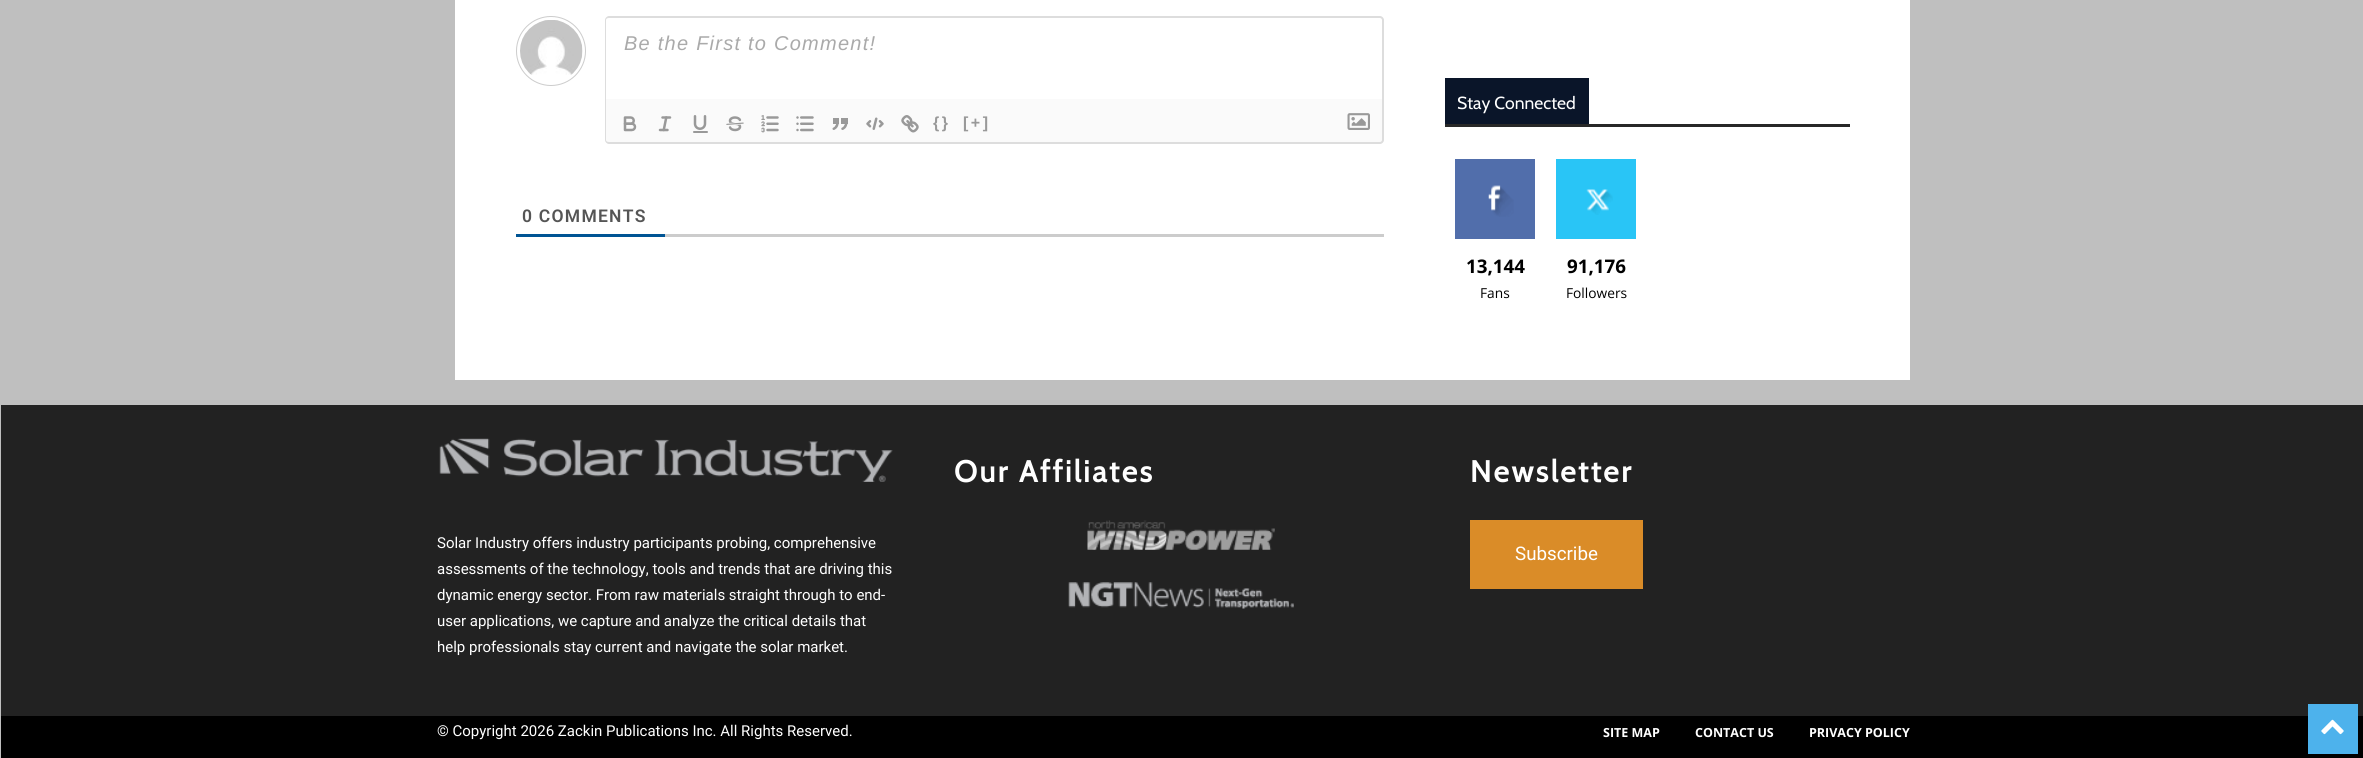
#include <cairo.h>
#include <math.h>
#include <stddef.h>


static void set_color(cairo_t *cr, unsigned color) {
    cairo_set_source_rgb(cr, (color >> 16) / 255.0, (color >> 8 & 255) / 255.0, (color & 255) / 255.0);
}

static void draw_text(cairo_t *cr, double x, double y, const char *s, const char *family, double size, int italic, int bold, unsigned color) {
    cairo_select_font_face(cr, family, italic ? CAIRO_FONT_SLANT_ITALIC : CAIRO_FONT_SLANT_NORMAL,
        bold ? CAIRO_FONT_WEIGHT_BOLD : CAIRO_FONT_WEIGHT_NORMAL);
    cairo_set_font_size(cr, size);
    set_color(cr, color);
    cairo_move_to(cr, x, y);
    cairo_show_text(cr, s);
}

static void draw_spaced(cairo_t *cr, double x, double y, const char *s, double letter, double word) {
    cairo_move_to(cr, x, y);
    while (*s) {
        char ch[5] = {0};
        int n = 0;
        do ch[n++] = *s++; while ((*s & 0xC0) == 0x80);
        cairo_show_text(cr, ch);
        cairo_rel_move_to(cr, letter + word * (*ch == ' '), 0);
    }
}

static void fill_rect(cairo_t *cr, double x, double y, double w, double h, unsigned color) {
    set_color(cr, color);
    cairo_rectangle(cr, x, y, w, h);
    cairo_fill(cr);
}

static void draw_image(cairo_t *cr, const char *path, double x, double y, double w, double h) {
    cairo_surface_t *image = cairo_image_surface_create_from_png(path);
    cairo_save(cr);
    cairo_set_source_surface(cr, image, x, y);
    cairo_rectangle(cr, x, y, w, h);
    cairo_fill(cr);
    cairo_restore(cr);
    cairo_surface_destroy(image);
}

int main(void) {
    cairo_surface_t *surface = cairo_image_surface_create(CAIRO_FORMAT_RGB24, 2363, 758);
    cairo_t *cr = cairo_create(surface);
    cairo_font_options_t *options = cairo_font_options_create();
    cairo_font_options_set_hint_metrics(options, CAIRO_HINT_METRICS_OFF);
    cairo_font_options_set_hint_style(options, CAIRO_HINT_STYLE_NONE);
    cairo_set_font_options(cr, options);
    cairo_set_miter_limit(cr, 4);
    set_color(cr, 0xBFBFBF);
    cairo_paint(cr);
    fill_rect(cr, 455, 0, 1455, 380, 0xFFFFFF);
    cairo_arc(cr, 551, 51, 34.5, 0, 2 * M_PI);
    set_color(cr, 0xCCCCCC);
    cairo_set_line_width(cr, 1);
    cairo_stroke(cr);
    draw_image(cr, "assets/img1.png", 520, 20, 63, 55);
    set_color(cr, 0xDDDDDD);
    cairo_set_fill_rule(cr, CAIRO_FILL_RULE_EVEN_ODD);
    cairo_new_path(cr);
    cairo_move_to(cr, 609, 16);
    cairo_line_to(cr, 1380, 16);
    cairo_curve_to(cr, 1382, 16, 1384, 18, 1384, 20);
    cairo_line_to(cr, 1384, 99);
    cairo_line_to(cr, 605, 99);
    cairo_line_to(cr, 605, 20);
    cairo_curve_to(cr, 605, 18, 607, 16, 609, 16);
    cairo_close_path(cr);
    cairo_move_to(cr, 609, 18);
    cairo_line_to(cr, 1380, 18);
    cairo_curve_to(cr, 1381, 18, 1382, 19, 1382, 20);
    cairo_line_to(cr, 1382, 99);
    cairo_line_to(cr, 606, 99);
    cairo_line_to(cr, 606, 20);
    cairo_curve_to(cr, 606, 19, 607, 18, 609, 18);
    cairo_close_path(cr);
    cairo_fill(cr);
    cairo_select_font_face(cr, "Liberation Sans", CAIRO_FONT_SLANT_ITALIC, CAIRO_FONT_WEIGHT_NORMAL);
    cairo_set_font_size(cr, 20);
    set_color(cr, 0xAAAAAA);
    draw_spaced(cr, 624, 50, "Be the First to Comment!", 1.25, 0);
    set_color(cr, 0xFAFAFA);
    cairo_new_path(cr);
    cairo_move_to(cr, 605, 99);
    cairo_line_to(cr, 1384, 99);
    cairo_line_to(cr, 1384, 140);
    cairo_curve_to(cr, 1384, 142, 1382, 144, 1380, 144);
    cairo_line_to(cr, 609, 144);
    cairo_curve_to(cr, 607, 144, 605, 142, 605, 140);
    cairo_close_path(cr);
    cairo_fill(cr);
    set_color(cr, 0xDDDDDD);
    cairo_new_path(cr);
    cairo_move_to(cr, 605, 99);
    cairo_line_to(cr, 1384, 99);
    cairo_line_to(cr, 1384, 140);
    cairo_curve_to(cr, 1384, 142, 1382, 144, 1380, 144);
    cairo_line_to(cr, 609, 144);
    cairo_curve_to(cr, 607, 144, 605, 142, 605, 140);
    cairo_close_path(cr);
    cairo_move_to(cr, 606, 99);
    cairo_line_to(cr, 1382, 99);
    cairo_line_to(cr, 1382, 140);
    cairo_curve_to(cr, 1382, 141, 1381, 142, 1380, 142);
    cairo_line_to(cr, 609, 142);
    cairo_curve_to(cr, 607, 142, 606, 141, 606, 140);
    cairo_close_path(cr);
    cairo_fill(cr);
    draw_image(cr, "assets/img2.png", 623, 116, 14, 16);
    draw_image(cr, "assets/img3.png", 658, 116, 14, 16);
    draw_image(cr, "assets/img4.png", 693, 115, 15, 18);
    draw_image(cr, "assets/img5.png", 726, 116, 18, 16);
    draw_image(cr, "assets/img6.png", 761, 115, 18, 18);
    draw_image(cr, "assets/img7.png", 796, 116, 18, 16);
    draw_image(cr, "assets/img8.png", 832, 118, 16, 12);
    draw_image(cr, "assets/img9.png", 866, 117, 18, 13);
    draw_image(cr, "assets/img10.png", 901, 115, 18, 18);
    cairo_select_font_face(cr, "Liberation Sans", CAIRO_FONT_SLANT_NORMAL, CAIRO_FONT_WEIGHT_BOLD);
    cairo_set_font_size(cr, 16);
    set_color(cr, 0x999999);
    draw_spaced(cr, 933, 128, "{}", 2.5, 0);
    draw_spaced(cr, 963, 128, "[+]", 2.5, 0);
    draw_image(cr, "assets/img11.png", 1347, 113, 23, 17);
    fill_rect(cr, 665, 234, 719, 3, 0xCCCCCC);
    fill_rect(cr, 516, 234, 149, 3, 0x005494);
    cairo_select_font_face(cr, "Roboto SemiBold", CAIRO_FONT_SLANT_NORMAL, CAIRO_FONT_WEIGHT_NORMAL);
    cairo_set_font_size(cr, 17.5);
    set_color(cr, 0x555555);
    draw_spaced(cr, 522, 222, "0 COMMENTS", 1.25, 0);
    fill_rect(cr, 1445, 124, 405, 3, 0x282828);
    fill_rect(cr, 1445, 78, 144, 46, 0x0A1529);
    draw_text(cr, 1457, 109, "Stay Connected", "Cabin", 17.5, 0, 0, 0xFFFFFF);
    fill_rect(cr, 1455, 159, 80, 80, 0x516EAB);
    draw_image(cr, "assets/img12.png", 1488, 185, 26, 32);
    draw_text(cr, 1466, 273, "13,144", "Open Sans", 18.75, 0, 1, 0x000000);
    draw_text(cr, 1480, 298, "Fans", "Open Sans", 13.75, 0, 0, 0x000000);
    fill_rect(cr, 1556, 159, 80, 80, 0x29C5F6);
    draw_image(cr, "assets/img13.png", 1586, 189, 27, 26);
    draw_text(cr, 1567, 273, "91,176", "Open Sans", 18.75, 0, 1, 0x000000);
    draw_text(cr, 1566, 298, "Followers", "Open Sans", 13.75, 0, 0, 0x000000);
    fill_rect(cr, 1, 405, 2362, 311, 0x222222);
    cairo_select_font_face(cr, "Cabin", CAIRO_FONT_SLANT_NORMAL, CAIRO_FONT_WEIGHT_BOLD);
    cairo_set_font_size(cr, 30);
    set_color(cr, 0xFFFFFF);
    draw_spaced(cr, 954, 482, "Our Affiliates", 2.5, 0);
    draw_image(cr, "assets/img14.png", 1087, 520, 188, 30);
    draw_image(cr, "assets/img15.png", 1068, 582, 226, 27);
    draw_spaced(cr, 1470, 482, "Newsletter", 2.5, 0);
    fill_rect(cr, 1470, 520, 173, 69, 0xDA8C28);
    draw_text(cr, 1515, 560, "Subscribe", "Roboto", 18.75, 0, 0, 0xFFFFFF);
    draw_image(cr, "assets/img16.png", 439, 438, 454, 44);
    draw_text(cr, 437, 548, "Solar Industry offers industry participants probing, comprehensive", "Roboto", 15, 0, 0, 0xFFFFFF);
    draw_text(cr, 437, 574, "assessments of the technology, tools and trends that are driving this", "Roboto", 15, 0, 0, 0xFFFFFF);
    draw_text(cr, 437, 600, "dynamic energy sector. From raw materials straight through to end-", "Roboto", 15, 0, 0, 0xFFFFFF);
    draw_text(cr, 437, 626, "user applications, we capture and analyze the critical details that", "Roboto", 15, 0, 0, 0xFFFFFF);
    draw_text(cr, 437, 652, "help professionals stay current and navigate the solar market.", "Roboto", 15, 0, 0, 0xFFFFFF);
    fill_rect(cr, 1, 716, 2362, 42, 0x000000);
    draw_text(cr, 437, 736, "© Copyright 2026 Zackin Publications Inc. All Rights Reserved.", "Roboto", 15, 0, 0, 0xFFFFFF);
    draw_text(cr, 1603, 737, "SITE MAP", "Open Sans", 12.5, 0, 1, 0xFFFFFF);
    draw_text(cr, 1695, 737, "CONTACT US", "Open Sans", 12.5, 0, 1, 0xFFFFFF);
    draw_text(cr, 1809, 737, "PRIVACY POLICY", "Open Sans", 12.5, 0, 1, 0xFFFFFF);
    fill_rect(cr, 2308, 704, 50, 50, 0x4DB2EC);
    draw_image(cr, "assets/img17.png", 2321, 719, 23, 16);
    cairo_surface_write_to_png(surface, "output.png");
    cairo_font_options_destroy(options);
    cairo_destroy(cr);
    cairo_surface_destroy(surface);
    return 0;
}
